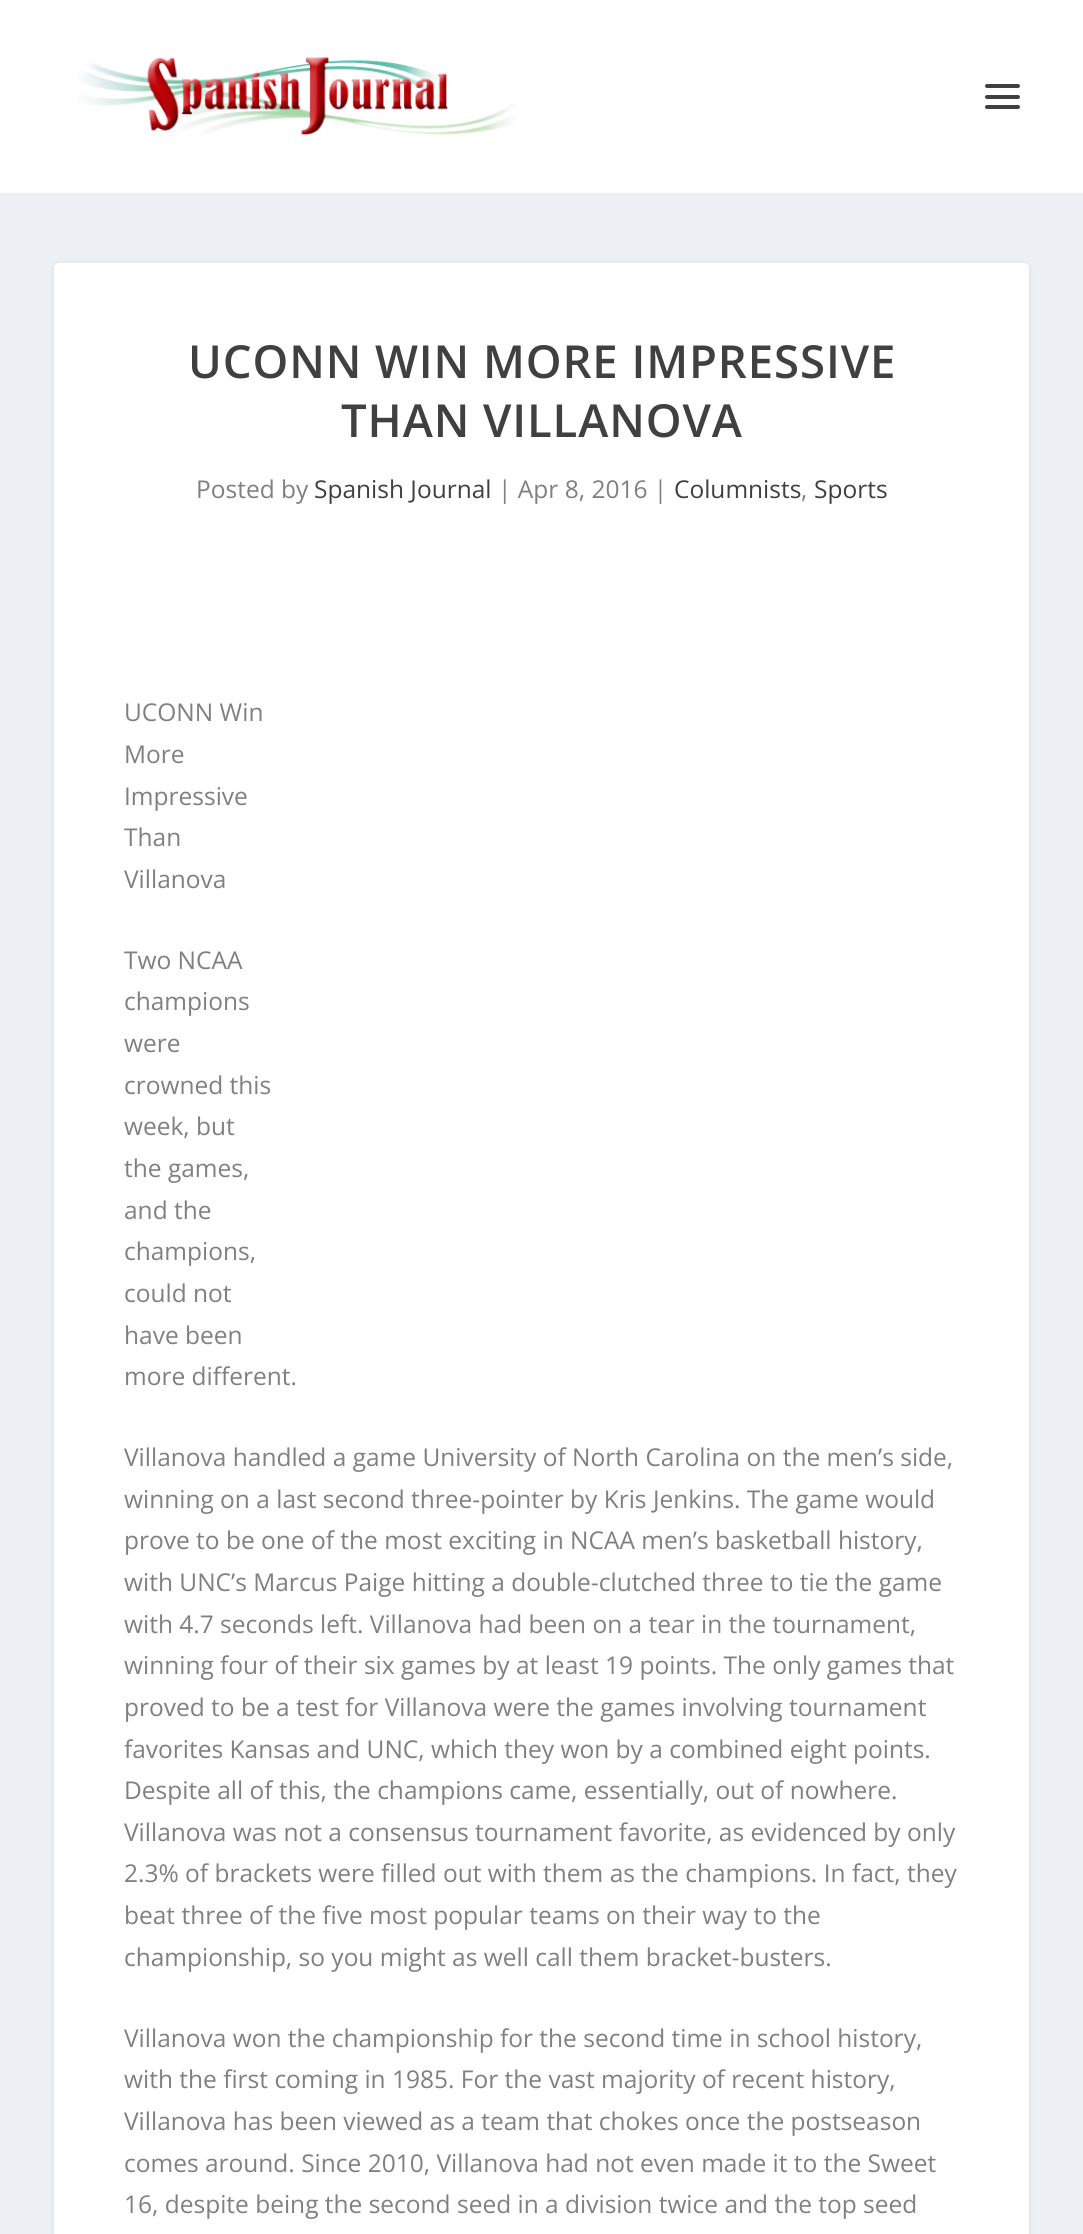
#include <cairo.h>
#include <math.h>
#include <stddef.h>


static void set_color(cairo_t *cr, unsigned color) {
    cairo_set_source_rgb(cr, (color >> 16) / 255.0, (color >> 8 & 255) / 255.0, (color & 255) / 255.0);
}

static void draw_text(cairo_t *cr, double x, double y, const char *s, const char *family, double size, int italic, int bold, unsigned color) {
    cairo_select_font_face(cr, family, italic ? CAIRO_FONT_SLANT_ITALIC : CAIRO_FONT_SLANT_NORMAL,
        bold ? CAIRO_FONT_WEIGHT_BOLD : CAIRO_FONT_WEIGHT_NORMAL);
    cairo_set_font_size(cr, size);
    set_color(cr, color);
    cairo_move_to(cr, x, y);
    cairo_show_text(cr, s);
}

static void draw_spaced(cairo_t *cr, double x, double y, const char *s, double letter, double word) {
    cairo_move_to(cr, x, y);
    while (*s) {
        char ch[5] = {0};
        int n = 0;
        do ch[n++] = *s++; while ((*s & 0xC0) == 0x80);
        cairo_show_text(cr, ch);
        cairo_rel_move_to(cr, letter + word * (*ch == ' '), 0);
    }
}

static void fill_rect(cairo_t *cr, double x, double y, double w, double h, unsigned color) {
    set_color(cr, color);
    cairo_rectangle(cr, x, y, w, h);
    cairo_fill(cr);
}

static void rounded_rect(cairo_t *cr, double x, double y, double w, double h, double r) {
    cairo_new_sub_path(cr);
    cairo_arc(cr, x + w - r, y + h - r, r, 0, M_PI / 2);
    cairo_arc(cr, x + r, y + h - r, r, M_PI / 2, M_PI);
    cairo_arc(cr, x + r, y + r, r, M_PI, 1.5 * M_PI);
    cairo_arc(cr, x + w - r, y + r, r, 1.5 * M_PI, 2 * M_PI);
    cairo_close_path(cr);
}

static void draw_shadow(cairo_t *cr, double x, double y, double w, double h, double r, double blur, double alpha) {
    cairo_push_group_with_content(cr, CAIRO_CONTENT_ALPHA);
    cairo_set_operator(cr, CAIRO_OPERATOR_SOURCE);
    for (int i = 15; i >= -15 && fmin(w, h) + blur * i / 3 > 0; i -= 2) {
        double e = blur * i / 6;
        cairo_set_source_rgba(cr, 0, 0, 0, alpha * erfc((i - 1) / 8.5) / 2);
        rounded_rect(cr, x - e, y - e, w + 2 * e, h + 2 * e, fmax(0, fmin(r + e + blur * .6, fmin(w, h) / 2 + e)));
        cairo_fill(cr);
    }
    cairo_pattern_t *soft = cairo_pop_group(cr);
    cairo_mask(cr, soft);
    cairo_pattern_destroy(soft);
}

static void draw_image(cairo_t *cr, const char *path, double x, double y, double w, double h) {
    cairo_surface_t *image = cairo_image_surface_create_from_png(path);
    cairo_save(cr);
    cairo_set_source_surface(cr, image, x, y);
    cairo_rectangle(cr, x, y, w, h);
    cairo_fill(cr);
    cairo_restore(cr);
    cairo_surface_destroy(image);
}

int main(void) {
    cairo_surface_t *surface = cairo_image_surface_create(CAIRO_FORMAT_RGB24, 1083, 2234);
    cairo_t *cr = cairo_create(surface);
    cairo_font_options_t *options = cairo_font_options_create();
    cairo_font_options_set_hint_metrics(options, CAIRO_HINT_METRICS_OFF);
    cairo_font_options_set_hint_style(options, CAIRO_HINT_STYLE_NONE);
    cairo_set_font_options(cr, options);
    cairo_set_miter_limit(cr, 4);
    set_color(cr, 0xECF0F5);
    cairo_paint(cr);
    fill_rect(cr, 0, 0, 1083, 193, 0xFFFFFF);
    draw_image(cr, "assets/img1.png", 77, 57, 438, 79);
    set_color(cr, 0x404040);
    rounded_rect(cr, 985, 84, 35, 4, 2);
    cairo_fill(cr);
    rounded_rect(cr, 985, 95, 35, 4, 2);
    cairo_fill(cr);
    rounded_rect(cr, 985, 105, 35, 4, 2);
    cairo_fill(cr);
    set_color(cr, 0x000000);
    draw_shadow(cr, 54, 264, 975, 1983, 5, 2.5, 0.1);
    set_color(cr, 0xFFFFFF);
    rounded_rect(cr, 54, 263, 975, 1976, 5);
    cairo_fill(cr);
    cairo_select_font_face(cr, "Open Sans SemiBold", CAIRO_FONT_SLANT_NORMAL, CAIRO_FONT_WEIGHT_NORMAL);
    cairo_set_font_size(cr, 45.5);
    set_color(cr, 0x404040);
    draw_spaced(cr, 188, 378, "UCONN WIN MORE IMPRESSIVE", 0.9, 0);
    draw_spaced(cr, 341, 437, "THAN VILLANOVA", 0.9, 0);
    draw_text(cr, 196, 498, "Posted by", "Open Sans", 24.5, 0, 0, 0x808080);
    draw_text(cr, 314, 498, "Spanish Journal", "Open Sans", 24.5, 0, 0, 0x404040);
    draw_text(cr, 498, 498, "| Apr 8, 2016 |", "Open Sans", 24.5, 0, 0, 0x808080);
    draw_text(cr, 674, 498, "Columnists", "Open Sans", 24.5, 0, 0, 0x404040);
    draw_text(cr, 801, 498, ",", "Open Sans", 24.5, 0, 0, 0x808080);
    draw_text(cr, 814, 498, "Sports", "Open Sans", 24.5, 0, 0, 0x404040);
    draw_text(cr, 124, 721, "UCONN Win", "Open Sans", 24.5, 0, 0, 0x808080);
    draw_text(cr, 124, 763, "More", "Open Sans", 24.5, 0, 0, 0x808080);
    draw_text(cr, 124, 805, "Impressive", "Open Sans", 24.5, 0, 0, 0x808080);
    draw_text(cr, 124, 846, "Than", "Open Sans", 24.5, 0, 0, 0x808080);
    draw_text(cr, 124, 888, "Villanova", "Open Sans", 24.5, 0, 0, 0x808080);
    draw_text(cr, 124, 969, "Two NCAA", "Open Sans", 24.5, 0, 0, 0x808080);
    draw_text(cr, 124, 1010, "champions", "Open Sans", 24.5, 0, 0, 0x808080);
    draw_text(cr, 124, 1052, "were", "Open Sans", 24.5, 0, 0, 0x808080);
    draw_text(cr, 124, 1094, "crowned this", "Open Sans", 24.5, 0, 0, 0x808080);
    draw_text(cr, 124, 1135, "week, but", "Open Sans", 24.5, 0, 0, 0x808080);
    draw_text(cr, 124, 1177, "the games,", "Open Sans", 24.5, 0, 0, 0x808080);
    draw_text(cr, 124, 1219, "and the", "Open Sans", 24.5, 0, 0, 0x808080);
    draw_text(cr, 124, 1260, "champions,", "Open Sans", 24.5, 0, 0, 0x808080);
    draw_text(cr, 124, 1302, "could not", "Open Sans", 24.5, 0, 0, 0x808080);
    draw_text(cr, 124, 1344, "have been", "Open Sans", 24.5, 0, 0, 0x808080);
    draw_text(cr, 124, 1385, "more different.", "Open Sans", 24.5, 0, 0, 0x808080);
    draw_text(cr, 124, 1466, "Villanova handled a game University of North Carolina on the men’s side,", "Open Sans", 24.5, 0, 0, 0x808080);
    draw_text(cr, 124, 1508, "winning on a last second three-pointer by Kris Jenkins. The game would", "Open Sans", 24.5, 0, 0, 0x808080);
    draw_text(cr, 124, 1549, "prove to be one of the most exciting in NCAA men’s basketball history,", "Open Sans", 24.5, 0, 0, 0x808080);
    draw_text(cr, 124, 1591, "with UNC’s Marcus Paige hitting a double-clutched three to tie the game", "Open Sans", 24.5, 0, 0, 0x808080);
    draw_text(cr, 124, 1633, "with 4.7 seconds left. Villanova had been on a tear in the tournament,", "Open Sans", 24.5, 0, 0, 0x808080);
    draw_text(cr, 124, 1674, "winning four of their six games by at least 19 points. The only games that", "Open Sans", 24.5, 0, 0, 0x808080);
    draw_text(cr, 124, 1716, "proved to be a test for Villanova were the games involving tournament", "Open Sans", 24.5, 0, 0, 0x808080);
    draw_text(cr, 124, 1758, "favorites Kansas and UNC, which they won by a combined eight points.", "Open Sans", 24.5, 0, 0, 0x808080);
    draw_text(cr, 124, 1799, "Despite all of this, the champions came, essentially, out of nowhere.", "Open Sans", 24.5, 0, 0, 0x808080);
    draw_text(cr, 124, 1841, "Villanova was not a consensus tournament favorite, as evidenced by only", "Open Sans", 24.5, 0, 0, 0x808080);
    draw_text(cr, 124, 1882, "2.3% of brackets were filled out with them as the champions. In fact, they", "Open Sans", 24.5, 0, 0, 0x808080);
    draw_text(cr, 124, 1924, "beat three of the five most popular teams on their way to the", "Open Sans", 24.5, 0, 0, 0x808080);
    draw_text(cr, 124, 1966, "championship, so you might as well call them bracket-busters.", "Open Sans", 24.5, 0, 0, 0x808080);
    draw_text(cr, 124, 2047, "Villanova won the championship for the second time in school history,", "Open Sans", 24.5, 0, 0, 0x808080);
    draw_text(cr, 124, 2088, "with the first coming in 1985. For the vast majority of recent history,", "Open Sans", 24.5, 0, 0, 0x808080);
    draw_text(cr, 124, 2130, "Villanova has been viewed as a team that chokes once the postseason", "Open Sans", 24.5, 0, 0, 0x808080);
    draw_text(cr, 124, 2172, "comes around. Since 2010, Villanova had not even made it to the Sweet", "Open Sans", 24.5, 0, 0, 0x808080);
    draw_text(cr, 124, 2213, "16, despite being the second seed in a division twice and the top seed", "Open Sans", 24.5, 0, 0, 0x808080);
    cairo_surface_write_to_png(surface, "output.png");
    cairo_font_options_destroy(options);
    cairo_destroy(cr);
    cairo_surface_destroy(surface);
    return 0;
}
